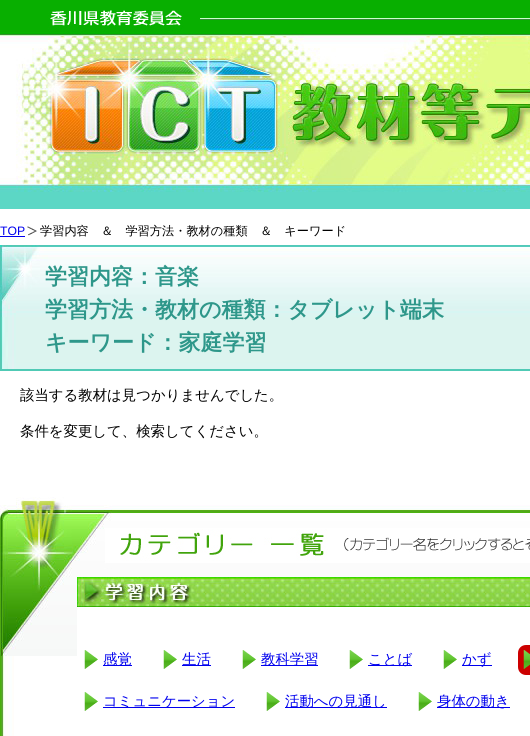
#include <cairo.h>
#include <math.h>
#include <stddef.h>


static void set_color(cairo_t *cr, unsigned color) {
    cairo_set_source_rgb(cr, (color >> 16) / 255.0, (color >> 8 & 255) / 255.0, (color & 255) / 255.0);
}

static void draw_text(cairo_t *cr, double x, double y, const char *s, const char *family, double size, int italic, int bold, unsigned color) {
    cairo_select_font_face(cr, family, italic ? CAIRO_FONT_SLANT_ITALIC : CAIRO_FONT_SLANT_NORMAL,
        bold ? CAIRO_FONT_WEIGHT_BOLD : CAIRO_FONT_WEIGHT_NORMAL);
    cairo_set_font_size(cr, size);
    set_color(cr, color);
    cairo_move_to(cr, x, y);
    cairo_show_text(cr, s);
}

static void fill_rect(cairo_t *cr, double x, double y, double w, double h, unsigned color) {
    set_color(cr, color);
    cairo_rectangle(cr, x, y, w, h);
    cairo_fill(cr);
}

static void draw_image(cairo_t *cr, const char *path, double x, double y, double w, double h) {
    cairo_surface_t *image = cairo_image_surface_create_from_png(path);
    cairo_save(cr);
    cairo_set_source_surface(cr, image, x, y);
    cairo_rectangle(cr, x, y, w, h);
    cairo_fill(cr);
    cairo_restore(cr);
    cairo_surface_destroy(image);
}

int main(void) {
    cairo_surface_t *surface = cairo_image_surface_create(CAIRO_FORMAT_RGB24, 530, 736);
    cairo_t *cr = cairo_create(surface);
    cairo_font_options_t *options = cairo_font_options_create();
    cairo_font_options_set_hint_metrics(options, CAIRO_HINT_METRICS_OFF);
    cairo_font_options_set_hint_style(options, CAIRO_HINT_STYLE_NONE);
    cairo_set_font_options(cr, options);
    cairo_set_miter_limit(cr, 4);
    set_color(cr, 0xFFFFFF);
    cairo_paint(cr);
    draw_image(cr, "assets/img1.png", 0, 0, 530, 209);
    draw_image(cr, "assets/img2.png", 0, 10, 530, 182);
    draw_text(cr, 0, 235, "TOP", "Liberation Sans", 12.2, 0, 0, 0x0000EE);
    fill_rect(cr, 0, 236, 25, 1, 0x0000EE);
    draw_image(cr, "assets/img3.png", 27, 226, 10, 10);
    draw_text(cr, 40, 235, "学習内容　＆　学習方法・教材の種類　＆　キーワード", "WenQuanYi Zen Hei Medium", 12.2, 0, 0, 0x000000);
    draw_image(cr, "assets/img4.png", 0, 245, 530, 124);
    fill_rect(cr, 0, 369, 530, 2, 0x50CAB5);
    draw_text(cr, 45, 284, "学習内容：音楽", "WenQuanYi Zen Hei", 22, 0, 1, 0x2E978A);
    draw_text(cr, 45, 317, "学習方法・教材の種類：タブレット端末", "WenQuanYi Zen Hei", 22, 0, 1, 0x2E978A);
    draw_text(cr, 45, 350, "キーワード：家庭学習", "WenQuanYi Zen Hei", 22, 0, 1, 0x2E978A);
    draw_text(cr, 20, 400, "該当する教材は見つかりませんでした。", "WenQuanYi Zen Hei Medium", 14.4, 0, 0, 0x000000);
    draw_text(cr, 20, 436, "条件を変更して、検索してください。", "WenQuanYi Zen Hei Medium", 14.4, 0, 0, 0x000000);
    draw_image(cr, "assets/img5.png", 0, 656, 14, 80);
    draw_image(cr, "assets/img6.png", 0, 497, 530, 80);
    draw_image(cr, "assets/img7.png", 0, 577, 77, 79);
    draw_image(cr, "assets/img8.png", 77, 577, 453, 30);
    draw_image(cr, "assets/img9.png", 84, 650, 14, 19);
    fill_rect(cr, 103, 665, 29, 1, 0x0000EE);
    draw_text(cr, 103, 664, "感覚", "WenQuanYi Zen Hei Medium", 14.4, 0, 0, 0x0000EE);
    draw_image(cr, "assets/img9.png", 163, 650, 14, 19);
    fill_rect(cr, 182, 665, 29, 1, 0x0000EE);
    draw_text(cr, 182, 664, "生活", "WenQuanYi Zen Hei Medium", 14.4, 0, 0, 0x0000EE);
    draw_image(cr, "assets/img9.png", 242, 650, 14, 19);
    fill_rect(cr, 261, 665, 57, 1, 0x0000EE);
    draw_text(cr, 261, 664, "教科学習", "WenQuanYi Zen Hei Medium", 14.4, 0, 0, 0x0000EE);
    draw_image(cr, "assets/img9.png", 349, 650, 14, 19);
    fill_rect(cr, 368, 665, 44, 1, 0x0000EE);
    draw_text(cr, 368, 664, "ことば", "WenQuanYi Zen Hei Medium", 14.4, 0, 0, 0x0000EE);
    draw_image(cr, "assets/img9.png", 443, 650, 14, 19);
    fill_rect(cr, 462, 665, 30, 1, 0x0000EE);
    draw_text(cr, 462, 664, "かず", "WenQuanYi Zen Hei Medium", 14.4, 0, 0, 0x0000EE);
    set_color(cr, 0xCC0000);
    cairo_new_path(cr);
    cairo_move_to(cr, 526, 645);
    cairo_line_to(cr, 530, 645);
    cairo_line_to(cr, 530, 675);
    cairo_line_to(cr, 526, 675);
    cairo_curve_to(cr, 521.5, 675, 518, 671.5, 518, 667);
    cairo_line_to(cr, 518, 653);
    cairo_curve_to(cr, 518, 648.5, 521.5, 645, 526, 645);
    cairo_close_path(cr);
    cairo_fill(cr);
    draw_image(cr, "assets/img10.png", 523, 650, 7, 19);
    draw_image(cr, "assets/img9.png", 84, 692, 14, 19);
    fill_rect(cr, 103, 707, 132, 1, 0x0000EE);
    draw_text(cr, 103, 706, "コミュニケーション", "WenQuanYi Zen Hei Medium", 14.4, 0, 0, 0x0000EE);
    draw_image(cr, "assets/img9.png", 266, 692, 14, 19);
    fill_rect(cr, 285, 707, 102, 1, 0x0000EE);
    draw_text(cr, 285, 706, "活動への見通し", "WenQuanYi Zen Hei Medium", 14.4, 0, 0, 0x0000EE);
    draw_image(cr, "assets/img9.png", 418, 692, 14, 19);
    fill_rect(cr, 437, 707, 73, 1, 0x0000EE);
    draw_text(cr, 437, 706, "身体の動き", "WenQuanYi Zen Hei Medium", 14.4, 0, 0, 0x0000EE);
    cairo_surface_write_to_png(surface, "output.png");
    cairo_font_options_destroy(options);
    cairo_destroy(cr);
    cairo_surface_destroy(surface);
    return 0;
}
